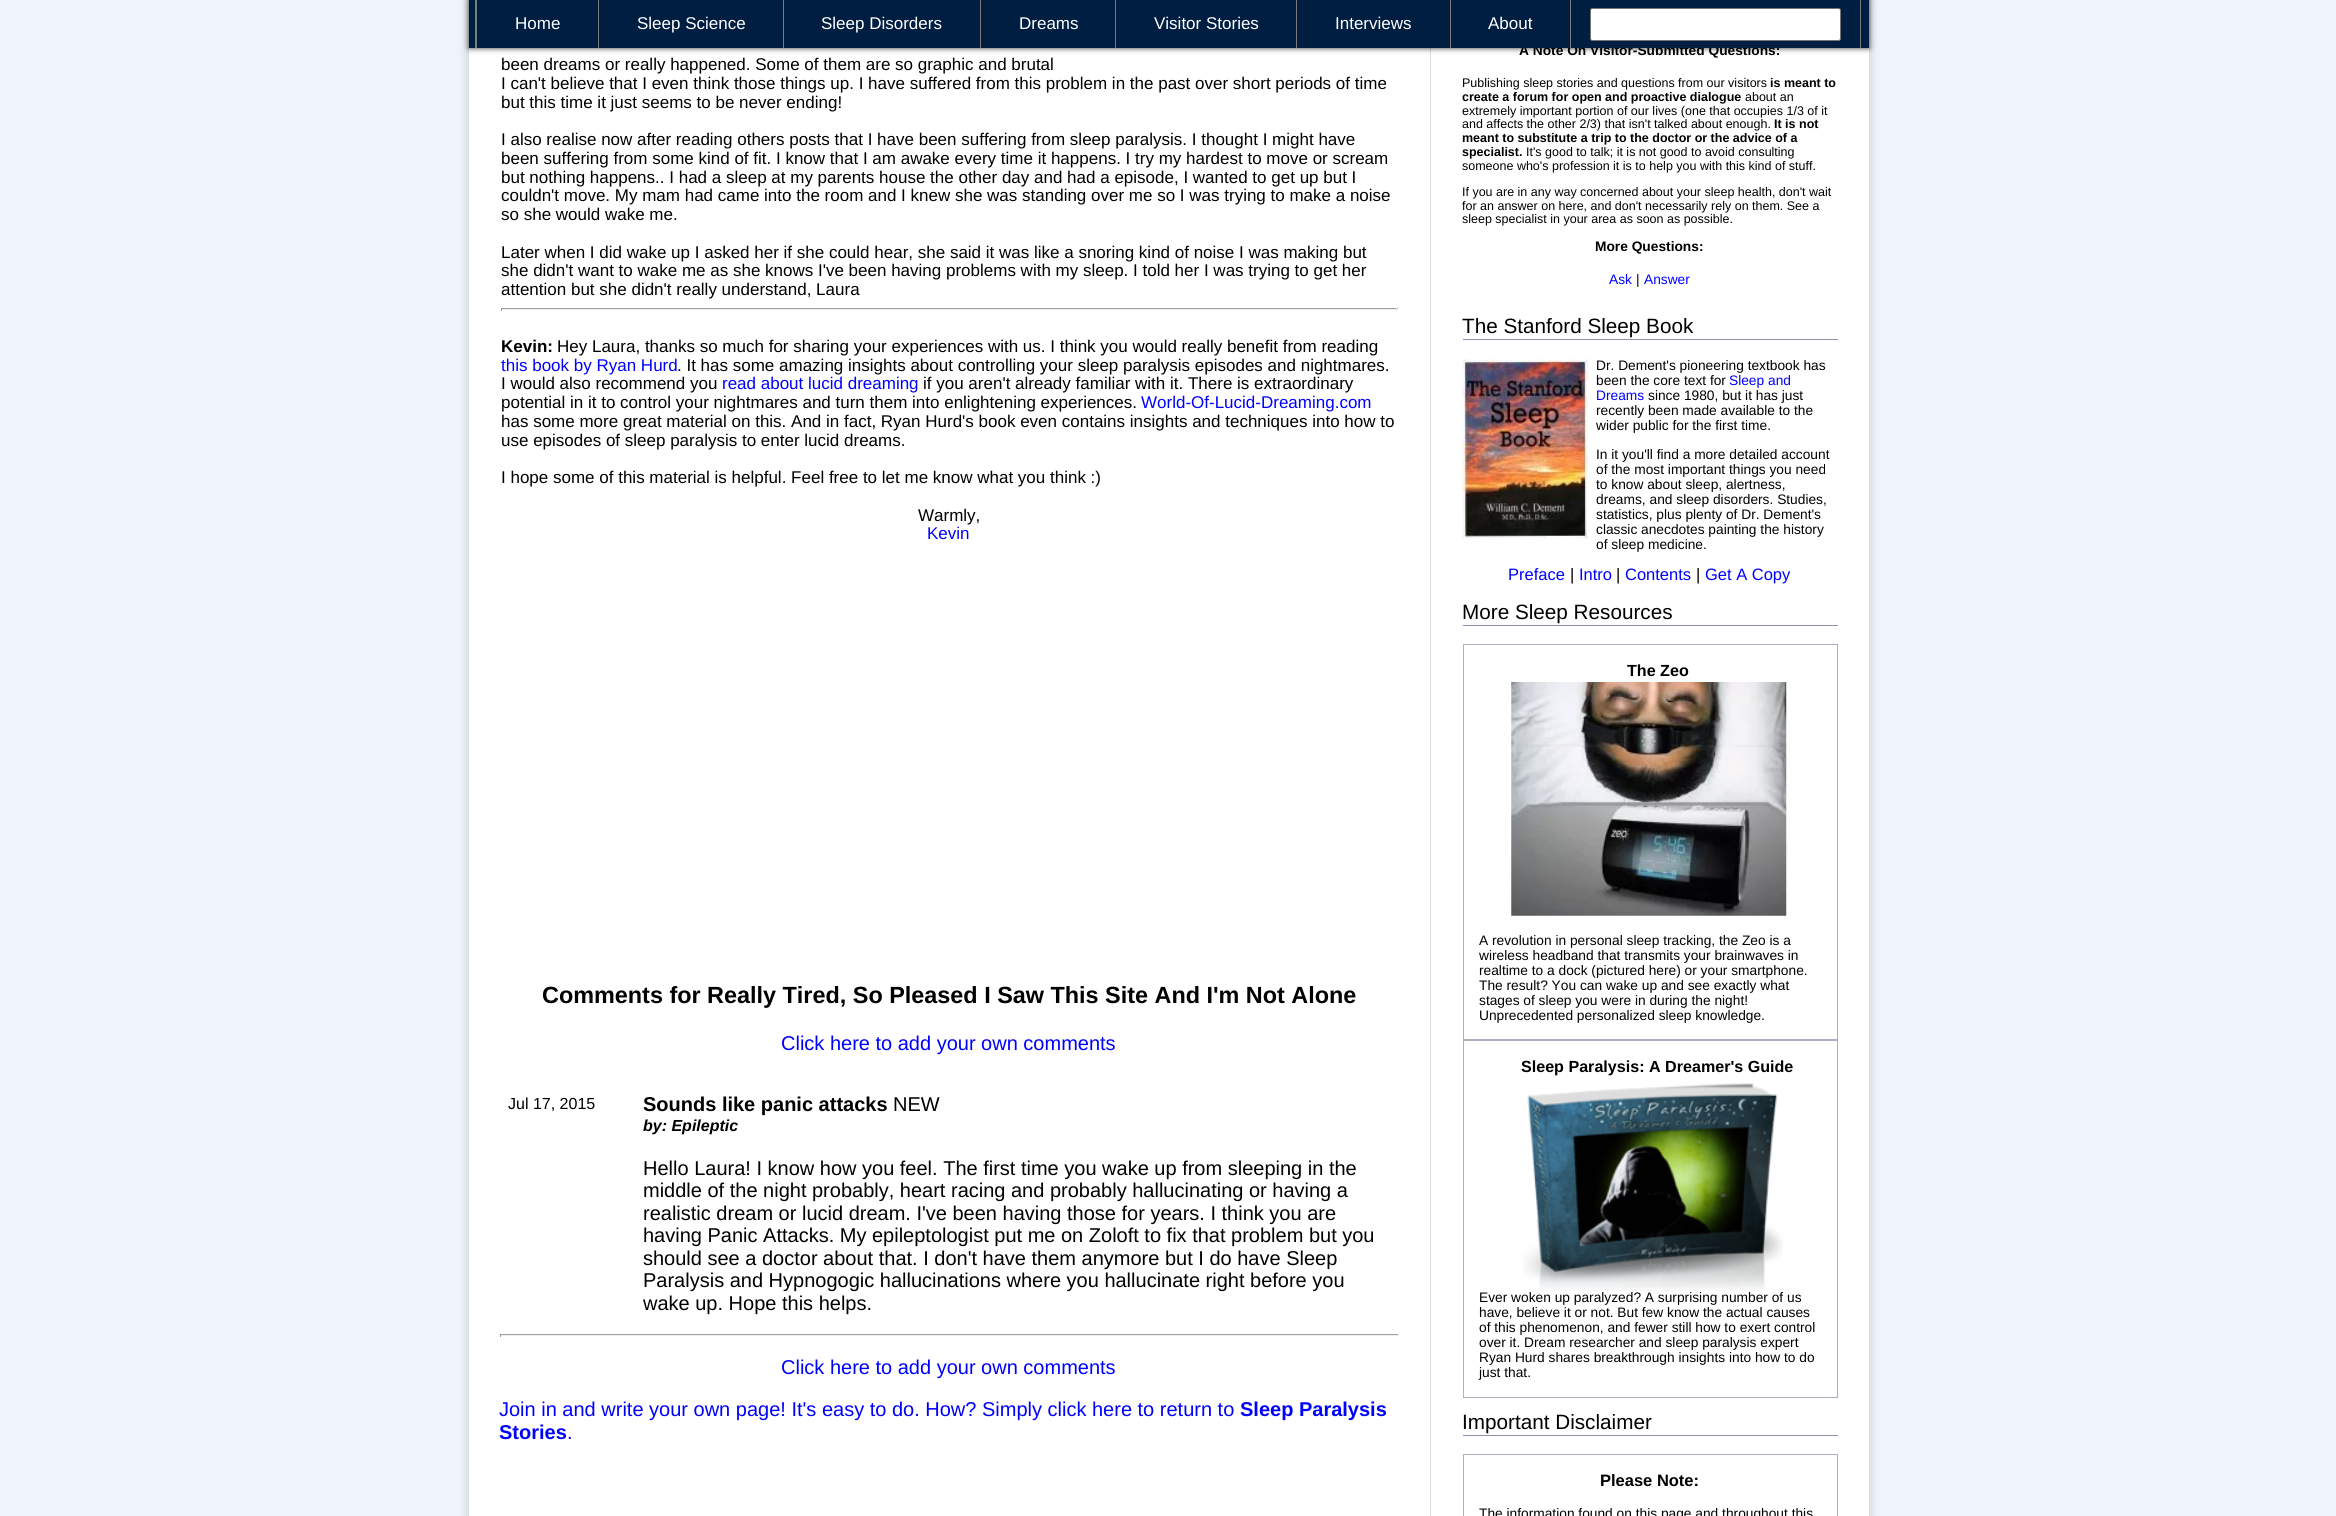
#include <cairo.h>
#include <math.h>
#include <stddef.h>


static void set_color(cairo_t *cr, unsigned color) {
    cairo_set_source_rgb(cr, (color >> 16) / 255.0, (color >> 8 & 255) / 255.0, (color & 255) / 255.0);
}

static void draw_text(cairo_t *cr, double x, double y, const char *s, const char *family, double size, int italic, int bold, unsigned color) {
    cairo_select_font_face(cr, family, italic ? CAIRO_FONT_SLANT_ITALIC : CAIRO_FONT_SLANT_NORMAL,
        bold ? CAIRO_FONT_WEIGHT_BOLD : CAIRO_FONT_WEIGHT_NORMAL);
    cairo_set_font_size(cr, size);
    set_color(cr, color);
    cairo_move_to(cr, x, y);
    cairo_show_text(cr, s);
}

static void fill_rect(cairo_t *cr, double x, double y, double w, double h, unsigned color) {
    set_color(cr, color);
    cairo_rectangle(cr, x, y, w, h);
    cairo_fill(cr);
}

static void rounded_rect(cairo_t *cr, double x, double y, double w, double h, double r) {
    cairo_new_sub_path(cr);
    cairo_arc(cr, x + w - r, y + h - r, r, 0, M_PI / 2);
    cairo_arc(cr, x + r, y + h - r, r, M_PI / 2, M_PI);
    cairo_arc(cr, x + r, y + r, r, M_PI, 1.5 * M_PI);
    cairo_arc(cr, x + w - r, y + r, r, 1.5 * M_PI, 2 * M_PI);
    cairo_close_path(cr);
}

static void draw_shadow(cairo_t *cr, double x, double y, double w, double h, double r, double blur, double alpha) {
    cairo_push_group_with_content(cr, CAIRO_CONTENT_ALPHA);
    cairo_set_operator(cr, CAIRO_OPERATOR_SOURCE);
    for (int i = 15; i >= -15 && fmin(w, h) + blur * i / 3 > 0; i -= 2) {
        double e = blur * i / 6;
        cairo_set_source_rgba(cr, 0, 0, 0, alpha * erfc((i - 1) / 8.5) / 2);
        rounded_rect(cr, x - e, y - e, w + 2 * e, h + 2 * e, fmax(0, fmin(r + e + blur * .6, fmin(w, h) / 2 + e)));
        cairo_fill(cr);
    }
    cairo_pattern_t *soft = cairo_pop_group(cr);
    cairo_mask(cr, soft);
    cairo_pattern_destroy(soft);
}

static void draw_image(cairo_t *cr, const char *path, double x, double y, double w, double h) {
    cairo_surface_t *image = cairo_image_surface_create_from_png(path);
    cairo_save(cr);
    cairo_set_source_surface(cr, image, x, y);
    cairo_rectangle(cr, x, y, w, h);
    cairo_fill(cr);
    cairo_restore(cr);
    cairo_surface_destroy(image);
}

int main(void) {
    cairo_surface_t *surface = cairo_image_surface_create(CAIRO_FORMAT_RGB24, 2336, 1516);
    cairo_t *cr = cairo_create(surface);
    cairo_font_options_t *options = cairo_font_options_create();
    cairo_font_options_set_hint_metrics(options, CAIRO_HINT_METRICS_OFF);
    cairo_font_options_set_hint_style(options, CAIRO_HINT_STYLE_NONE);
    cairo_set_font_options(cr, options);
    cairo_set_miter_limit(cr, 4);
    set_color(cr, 0xF0F5FB);
    cairo_paint(cr);
    set_color(cr, 0x000000);
    draw_shadow(cr, 469, -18, 1400, 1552, 0, 6, 0.2);
    fill_rect(cr, 469, 48, 1400, 1468, 0xFFFFFF);
    fill_rect(cr, 1430, 48, 1, 1468, 0xDDDDDD);
    set_color(cr, 0x333333);
    draw_shadow(cr, 469, 0, 1400, 48, 0, 3, 1);
    draw_text(cr, 1519, 55, "A Note On Visitor-Submitted Questions:", "Liberation Sans", 13.75, 0, 1, 0x000000);
    fill_rect(cr, 469, 0, 1400, 48, 0x001E42);
    fill_rect(cr, 1860, 0, 1, 48, 0x7B7B7B);
    fill_rect(cr, 475, 0, 2, 48, 0x7B7B7B);
    draw_text(cr, 515, 29, "Home", "Liberation Sans", 17, 0, 0, 0xFFFFFF);
    fill_rect(cr, 598, 0, 1, 48, 0x7B7B7B);
    draw_text(cr, 637, 29, "Sleep Science", "Liberation Sans", 17, 0, 0, 0xFFFFFF);
    fill_rect(cr, 783, 0, 1, 48, 0x7B7B7B);
    draw_text(cr, 821, 29, "Sleep Disorders", "Liberation Sans", 17, 0, 0, 0xFFFFFF);
    fill_rect(cr, 980, 0, 1, 48, 0x7B7B7B);
    draw_text(cr, 1019, 29, "Dreams", "Liberation Sans", 17, 0, 0, 0xFFFFFF);
    fill_rect(cr, 1115, 0, 1, 48, 0x7B7B7B);
    draw_text(cr, 1154, 29, "Visitor Stories", "Liberation Sans", 17, 0, 0, 0xFFFFFF);
    fill_rect(cr, 1296, 0, 1, 48, 0x7B7B7B);
    draw_text(cr, 1335, 29, "Interviews", "Liberation Sans", 17, 0, 0, 0xFFFFFF);
    fill_rect(cr, 1450, 0, 1, 48, 0x7B7B7B);
    draw_text(cr, 1488, 29, "About", "Liberation Sans", 17, 0, 0, 0xFFFFFF);
    fill_rect(cr, 1570, 0, 1, 48, 0x7B7B7B);
    set_color(cr, 0xFFFFFF);
    rounded_rect(cr, 1590.5, 8.5, 250, 32, 2);
    cairo_fill_preserve(cr);
    set_color(cr, 0x767676);
    cairo_set_line_width(cr, 1);
    cairo_stroke(cr);
    draw_text(cr, 501, 70, "been dreams or really happened. Some of them are so graphic and brutal", "Liberation Sans", 17, 0, 0, 0x000000);
    draw_text(cr, 501, 89, "I can't believe that I even think those things up. I have suffered from this problem in the past over short periods of time", "Liberation Sans", 17, 0, 0, 0x000000);
    draw_text(cr, 501, 108, "but this time it just seems to be never ending!", "Liberation Sans", 17, 0, 0, 0x000000);
    draw_text(cr, 501, 145, "I also realise now after reading others posts that I have been suffering from sleep paralysis. I thought I might have", "Liberation Sans", 17, 0, 0, 0x000000);
    draw_text(cr, 501, 164, "been suffering from some kind of fit. I know that I am awake every time it happens. I try my hardest to move or scream", "Liberation Sans", 17, 0, 0, 0x000000);
    draw_text(cr, 501, 183, "but nothing happens.. I had a sleep at my parents house the other day and had a episode, I wanted to get up but I", "Liberation Sans", 17, 0, 0, 0x000000);
    draw_text(cr, 501, 201, "couldn't move. My mam had came into the room and I knew she was standing over me so I was trying to make a noise", "Liberation Sans", 17, 0, 0, 0x000000);
    draw_text(cr, 501, 220, "so she would wake me.", "Liberation Sans", 17, 0, 0, 0x000000);
    draw_text(cr, 501, 258, "Later when I did wake up I asked her if she could hear, she said it was like a snoring kind of noise I was making but", "Liberation Sans", 17, 0, 0, 0x000000);
    draw_text(cr, 501, 276, "she didn't want to wake me as she knows I've been having problems with my sleep. I told her I was trying to get her", "Liberation Sans", 17, 0, 0, 0x000000);
    draw_text(cr, 501, 295, "attention but she didn't really understand, Laura", "Liberation Sans", 17, 0, 0, 0x000000);
    fill_rect(cr, 501, 308, 897, 1, 0x9F9F9F);
    fill_rect(cr, 1396, 308, 1, 3, 0xEEEEEE);
    fill_rect(cr, 501, 309, 897, 1, 0xEEEEEE);
    fill_rect(cr, 501, 308, 1, 3, 0x9F9F9F);
    draw_text(cr, 501, 352, "Kevin:", "Liberation Sans", 17, 0, 1, 0x000000);
    draw_text(cr, 557, 352, "Hey Laura, thanks so much for sharing your experiences with us. I think you would really benefit from reading", "Liberation Sans", 17, 0, 0, 0x000000);
    draw_text(cr, 501, 371, "this book by Ryan Hurd", "Liberation Sans", 17, 0, 0, 0x0000FF);
    draw_text(cr, 677, 371, ". It has some amazing insights about controlling your sleep paralysis episodes and nightmares.", "Liberation Sans", 17, 0, 0, 0x000000);
    draw_text(cr, 501, 389, "I would also recommend you", "Liberation Sans", 17, 0, 0, 0x000000);
    draw_text(cr, 722, 389, "read about lucid dreaming", "Liberation Sans", 17, 0, 0, 0x0000FF);
    draw_text(cr, 923, 389, "if you aren't already familiar with it. There is extraordinary", "Liberation Sans", 17, 0, 0, 0x000000);
    draw_text(cr, 501, 408, "potential in it to control your nightmares and turn them into enlightening experiences.", "Liberation Sans", 17, 0, 0, 0x000000);
    draw_text(cr, 1141, 408, "World-Of-Lucid-Dreaming.com", "Liberation Sans", 17, 0, 0, 0x0000FF);
    draw_text(cr, 501, 427, "has some more great material on this. And in fact, Ryan Hurd's book even contains insights and techniques into how to", "Liberation Sans", 17, 0, 0, 0x000000);
    draw_text(cr, 501, 446, "use episodes of sleep paralysis to enter lucid dreams.", "Liberation Sans", 17, 0, 0, 0x000000);
    draw_text(cr, 501, 483, "I hope some of this material is helpful. Feel free to let me know what you think :)", "Liberation Sans", 17, 0, 0, 0x000000);
    draw_text(cr, 918, 521, "Warmly,", "Liberation Sans", 17, 0, 0, 0x000000);
    draw_text(cr, 927, 539, "Kevin", "Liberation Sans", 17, 0, 0, 0x0000FF);
    draw_text(cr, 542, 1003, "Comments for Really Tired, So Pleased I Saw This Site And I'm Not Alone", "Liberation Sans", 23.4, 0, 1, 0x000000);
    draw_text(cr, 781, 1050, "Click here to add your own comments", "Liberation Sans", 20, 0, 0, 0x0000FF);
    draw_text(cr, 508, 1109, "Jul 17, 2015", "Liberation Sans", 16, 0, 0, 0x000000);
    draw_text(cr, 643, 1111, "Sounds like panic attacks", "Liberation Sans", 20, 0, 1, 0x000000);
    draw_text(cr, 893, 1111, "NEW", "Liberation Sans", 20, 0, 0, 0x000000);
    draw_text(cr, 643, 1131, "by: Epileptic", "Liberation Sans", 16, 1, 1, 0x000000);
    draw_text(cr, 643, 1175, "Hello Laura! I know how you feel. The first time you wake up from sleeping in the", "Liberation Sans", 20, 0, 0, 0x000000);
    draw_text(cr, 643, 1197, "middle of the night probably, heart racing and probably hallucinating or having a", "Liberation Sans", 20, 0, 0, 0x000000);
    draw_text(cr, 643, 1220, "realistic dream or lucid dream. I've been having those for years. I think you are", "Liberation Sans", 20, 0, 0, 0x000000);
    draw_text(cr, 643, 1242, "having Panic Attacks. My epileptologist put me on Zoloft to fix that problem but you", "Liberation Sans", 20, 0, 0, 0x000000);
    draw_text(cr, 643, 1265, "should see a doctor about that. I don't have them anymore but I do have Sleep", "Liberation Sans", 20, 0, 0, 0x000000);
    draw_text(cr, 643, 1287, "Paralysis and Hypnogogic hallucinations where you hallucinate right before you", "Liberation Sans", 20, 0, 0, 0x000000);
    draw_text(cr, 643, 1310, "wake up. Hope this helps.", "Liberation Sans", 20, 0, 0, 0x000000);
    fill_rect(cr, 500, 1334, 899, 1, 0x9F9F9F);
    fill_rect(cr, 1398, 1334, 1, 3, 0xEEEEEE);
    fill_rect(cr, 500, 1335, 899, 1, 0xEEEEEE);
    fill_rect(cr, 500, 1334, 1, 3, 0x9F9F9F);
    draw_text(cr, 781, 1374, "Click here to add your own comments", "Liberation Sans", 20, 0, 0, 0x0000FF);
    draw_text(cr, 499, 1416, "Join in and write your own page! It's easy to do. How? Simply click here to return to", "Liberation Sans", 20, 0, 0, 0x0000FF);
    draw_text(cr, 1240, 1416, "Sleep Paralysis", "Liberation Sans", 20, 0, 1, 0x0000FF);
    draw_text(cr, 499, 1439, "Stories", "Liberation Sans", 20, 0, 1, 0x0000FF);
    draw_text(cr, 567, 1439, ".", "Liberation Sans", 20, 0, 0, 0x0000FF);
    draw_text(cr, 1462, 87, "Publishing sleep stories and questions from our visitors", "Liberation Sans", 12.5, 0, 0, 0x000000);
    draw_text(cr, 1770, 87, "is meant to", "Liberation Sans", 12.5, 0, 1, 0x000000);
    draw_text(cr, 1462, 101, "create a forum for open and proactive dialogue", "Liberation Sans", 12.5, 0, 1, 0x000000);
    draw_text(cr, 1745, 101, "about an", "Liberation Sans", 12.5, 0, 0, 0x000000);
    draw_text(cr, 1462, 115, "extremely important portion of our lives (one that occupies 1/3 of it", "Liberation Sans", 12.5, 0, 0, 0x000000);
    draw_text(cr, 1462, 128, "and affects the other 2/3) that isn't talked about enough.", "Liberation Sans", 12.5, 0, 0, 0x000000);
    draw_text(cr, 1774, 128, "It is not", "Liberation Sans", 12.5, 0, 1, 0x000000);
    draw_text(cr, 1462, 142, "meant to substitute a trip to the doctor or the advice of a", "Liberation Sans", 12.5, 0, 1, 0x000000);
    draw_text(cr, 1462, 156, "specialist.", "Liberation Sans", 12.5, 0, 1, 0x000000);
    draw_text(cr, 1526, 156, "It's good to talk; it is not good to avoid consulting", "Liberation Sans", 12.5, 0, 0, 0x000000);
    draw_text(cr, 1462, 170, "someone who's profession it is to help you with this kind of stuff.", "Liberation Sans", 12.5, 0, 0, 0x000000);
    draw_text(cr, 1462, 196, "If you are in any way concerned about your sleep health, don't wait", "Liberation Sans", 12.5, 0, 0, 0x000000);
    draw_text(cr, 1462, 210, "for an answer on here, and don't necessarily rely on them. See a", "Liberation Sans", 12.5, 0, 0, 0x000000);
    draw_text(cr, 1462, 223, "sleep specialist in your area as soon as possible.", "Liberation Sans", 12.5, 0, 0, 0x000000);
    draw_text(cr, 1595, 251, "More Questions:", "Liberation Sans", 13.75, 0, 1, 0x000000);
    draw_text(cr, 1609, 284, "Ask", "Liberation Sans", 13.75, 0, 0, 0x0000FF);
    draw_text(cr, 1636, 284, "|", "Liberation Sans", 13.75, 0, 0, 0x000000);
    draw_text(cr, 1644, 284, "Answer", "Liberation Sans", 13.75, 0, 0, 0x0000FF);
    fill_rect(cr, 1463, 339, 375, 1, 0x8F8FB3);
    draw_text(cr, 1462, 333, "The Stanford Sleep Book", "Liberation Sans", 20.7, 0, 0, 0x000000);
    draw_image(cr, "assets/img1.png", 1462, 359, 126, 180);
    draw_text(cr, 1596, 370, "Dr. Dement's pioneering textbook has", "Liberation Sans", 13.75, 0, 0, 0x000000);
    draw_text(cr, 1596, 385, "been the core text for", "Liberation Sans", 13.75, 0, 0, 0x000000);
    draw_text(cr, 1729, 385, "Sleep and", "Liberation Sans", 13.75, 0, 0, 0x0000FF);
    draw_text(cr, 1596, 400, "Dreams", "Liberation Sans", 13.75, 0, 0, 0x0000FF);
    draw_text(cr, 1648, 400, "since 1980, but it has just", "Liberation Sans", 13.75, 0, 0, 0x000000);
    draw_text(cr, 1596, 415, "recently been made available to the", "Liberation Sans", 13.75, 0, 0, 0x000000);
    draw_text(cr, 1596, 430, "wider public for the first time.", "Liberation Sans", 13.75, 0, 0, 0x000000);
    draw_text(cr, 1596, 459, "In it you'll find a more detailed account", "Liberation Sans", 13.75, 0, 0, 0x000000);
    draw_text(cr, 1596, 474, "of the most important things you need", "Liberation Sans", 13.75, 0, 0, 0x000000);
    draw_text(cr, 1596, 489, "to know about sleep, alertness,", "Liberation Sans", 13.75, 0, 0, 0x000000);
    draw_text(cr, 1596, 504, "dreams, and sleep disorders. Studies,", "Liberation Sans", 13.75, 0, 0, 0x000000);
    draw_text(cr, 1596, 519, "statistics, plus plenty of Dr. Dement's", "Liberation Sans", 13.75, 0, 0, 0x000000);
    draw_text(cr, 1596, 534, "classic anecdotes painting the history", "Liberation Sans", 13.75, 0, 0, 0x000000);
    draw_text(cr, 1596, 549, "of sleep medicine.", "Liberation Sans", 13.75, 0, 0, 0x000000);
    draw_text(cr, 1508, 580, "Preface", "Liberation Sans", 16.5, 0, 0, 0x0000FF);
    draw_text(cr, 1570, 580, "|", "Liberation Sans", 16.5, 0, 0, 0x000000);
    draw_text(cr, 1579, 580, "Intro", "Liberation Sans", 16.5, 0, 0, 0x0000FF);
    draw_text(cr, 1616, 580, "|", "Liberation Sans", 16.5, 0, 0, 0x000000);
    draw_text(cr, 1625, 580, "Contents", "Liberation Sans", 16.5, 0, 0, 0x0000FF);
    draw_text(cr, 1696, 580, "|", "Liberation Sans", 16.5, 0, 0, 0x000000);
    draw_text(cr, 1705, 580, "Get A Copy", "Liberation Sans", 16.5, 0, 0, 0x0000FF);
    fill_rect(cr, 1463, 625, 375, 1, 0x8F8FB3);
    draw_text(cr, 1462, 619, "More Sleep Resources", "Liberation Sans", 20.7, 0, 0, 0x000000);
    cairo_rectangle(cr, 1463.5, 644.5, 374, 395);
    set_color(cr, 0xAFAEC0);
    cairo_stroke(cr);
    draw_text(cr, 1627, 676, "The Zeo", "Liberation Sans", 16.1, 0, 1, 0x000000);
    draw_image(cr, "assets/img2.png", 1511, 682, 276, 234);
    draw_text(cr, 1479, 945, "A revolution in personal sleep tracking, the Zeo is a", "Liberation Sans", 13.75, 0, 0, 0x000000);
    draw_text(cr, 1479, 960, "wireless headband that transmits your brainwaves in", "Liberation Sans", 13.75, 0, 0, 0x000000);
    draw_text(cr, 1479, 975, "realtime to a dock (pictured here) or your smartphone.", "Liberation Sans", 13.75, 0, 0, 0x000000);
    draw_text(cr, 1479, 990, "The result? You can wake up and see exactly what", "Liberation Sans", 13.75, 0, 0, 0x000000);
    draw_text(cr, 1479, 1005, "stages of sleep you were in during the night!", "Liberation Sans", 13.75, 0, 0, 0x000000);
    draw_text(cr, 1479, 1020, "Unprecedented personalized sleep knowledge.", "Liberation Sans", 13.75, 0, 0, 0x000000);
    cairo_rectangle(cr, 1463.5, 1040.5, 374, 357);
    set_color(cr, 0xAFAEC0);
    cairo_stroke(cr);
    draw_text(cr, 1521, 1072, "Sleep Paralysis: A Dreamer's Guide", "Liberation Sans", 16.1, 0, 1, 0x000000);
    draw_image(cr, "assets/img3.png", 1523, 1083, 260, 208);
    draw_text(cr, 1479, 1302, "Ever woken up paralyzed? A surprising number of us", "Liberation Sans", 13.75, 0, 0, 0x000000);
    draw_text(cr, 1479, 1317, "have, believe it or not. But few know the actual causes", "Liberation Sans", 13.75, 0, 0, 0x000000);
    draw_text(cr, 1479, 1332, "of this phenomenon, and fewer still how to exert control", "Liberation Sans", 13.75, 0, 0, 0x000000);
    draw_text(cr, 1479, 1347, "over it. Dream researcher and sleep paralysis expert", "Liberation Sans", 13.75, 0, 0, 0x000000);
    draw_text(cr, 1479, 1362, "Ryan Hurd shares breakthrough insights into how to do", "Liberation Sans", 13.75, 0, 0, 0x000000);
    draw_text(cr, 1479, 1377, "just that.", "Liberation Sans", 13.75, 0, 0, 0x000000);
    fill_rect(cr, 1463, 1435, 375, 1, 0x8F8FB3);
    draw_text(cr, 1462, 1429, "Important Disclaimer", "Liberation Sans", 20.7, 0, 0, 0x000000);
    cairo_rectangle(cr, 1463.5, 1454.5, 374, 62);
    set_color(cr, 0xAFAEC0);
    cairo_stroke(cr);
    draw_text(cr, 1600, 1486, "Please Note:", "Liberation Sans", 16.5, 0, 1, 0x000000);
    draw_text(cr, 1479, 1518, "The information found on this page and throughout this", "Liberation Sans", 13.75, 0, 0, 0x000000);
    cairo_surface_write_to_png(surface, "output.png");
    cairo_font_options_destroy(options);
    cairo_destroy(cr);
    cairo_surface_destroy(surface);
    return 0;
}
